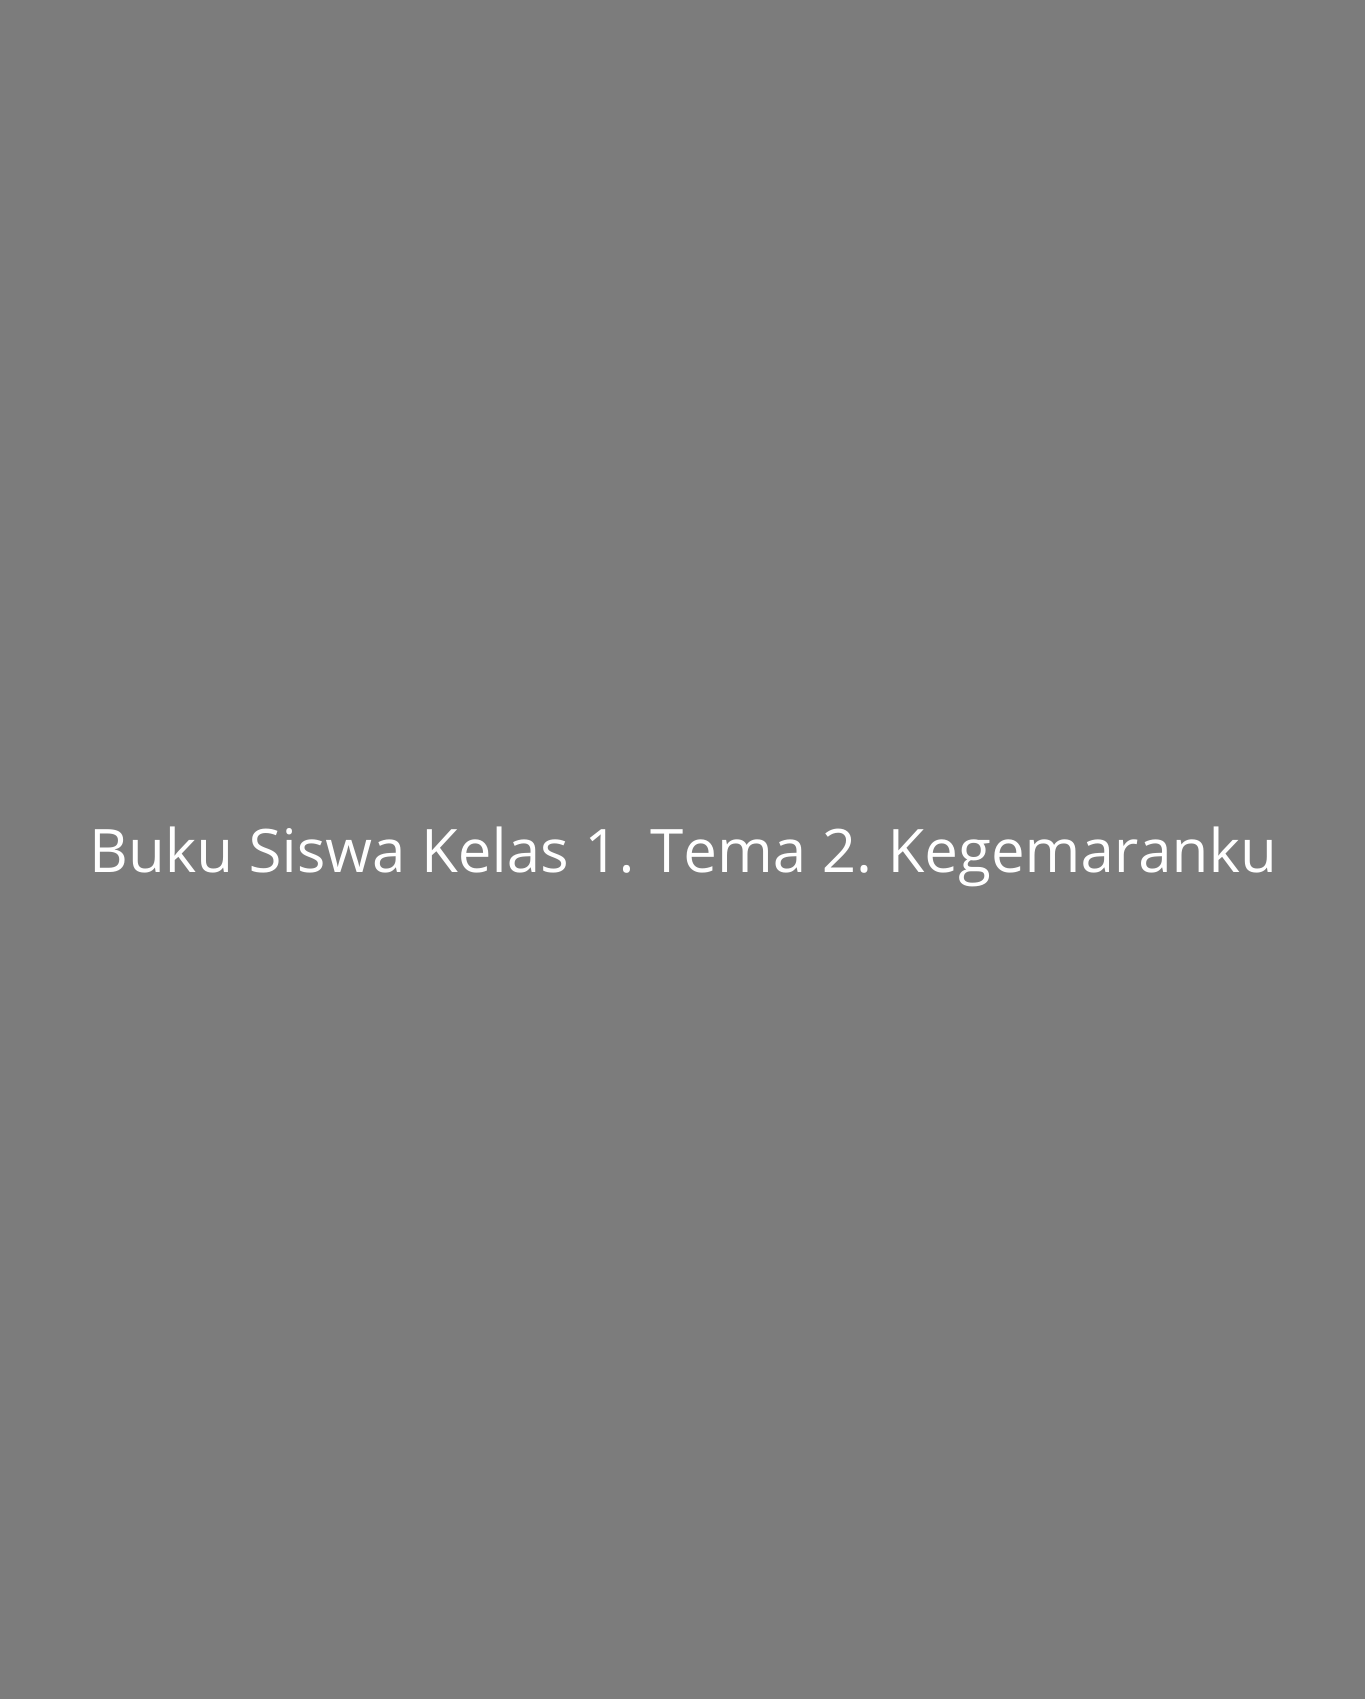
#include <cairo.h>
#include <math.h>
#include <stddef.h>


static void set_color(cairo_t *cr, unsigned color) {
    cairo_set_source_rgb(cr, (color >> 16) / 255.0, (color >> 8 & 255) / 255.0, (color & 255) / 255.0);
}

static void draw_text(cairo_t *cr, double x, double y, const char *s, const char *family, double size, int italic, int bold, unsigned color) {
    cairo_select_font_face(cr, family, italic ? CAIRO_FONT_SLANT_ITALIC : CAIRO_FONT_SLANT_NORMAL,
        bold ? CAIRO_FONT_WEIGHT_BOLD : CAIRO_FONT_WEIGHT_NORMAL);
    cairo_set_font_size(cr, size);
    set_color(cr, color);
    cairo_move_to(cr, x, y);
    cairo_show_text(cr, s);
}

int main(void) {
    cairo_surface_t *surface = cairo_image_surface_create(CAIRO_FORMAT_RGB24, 1365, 1699);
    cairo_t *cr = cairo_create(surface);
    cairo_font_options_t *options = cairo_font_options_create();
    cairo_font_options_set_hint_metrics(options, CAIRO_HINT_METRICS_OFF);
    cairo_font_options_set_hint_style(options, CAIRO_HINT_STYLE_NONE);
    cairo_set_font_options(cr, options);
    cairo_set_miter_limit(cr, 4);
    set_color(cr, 0x7C7C7C);
    cairo_paint(cr);
    draw_text(cr, 89, 872, "Buku Siswa Kelas 1. Tema 2. Kegemaranku", "Open Sans", 60, 0, 0, 0xFFFFFF);
    cairo_surface_write_to_png(surface, "output.png");
    cairo_font_options_destroy(options);
    cairo_destroy(cr);
    cairo_surface_destroy(surface);
    return 0;
}
